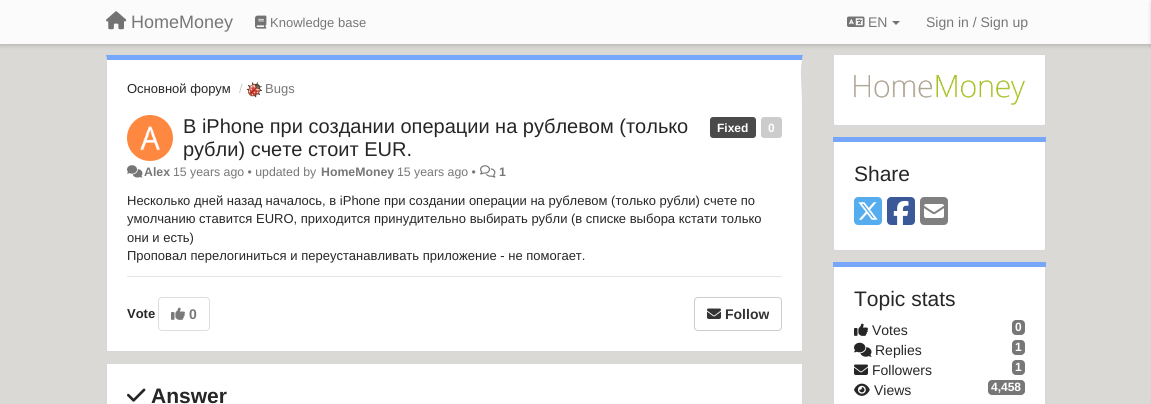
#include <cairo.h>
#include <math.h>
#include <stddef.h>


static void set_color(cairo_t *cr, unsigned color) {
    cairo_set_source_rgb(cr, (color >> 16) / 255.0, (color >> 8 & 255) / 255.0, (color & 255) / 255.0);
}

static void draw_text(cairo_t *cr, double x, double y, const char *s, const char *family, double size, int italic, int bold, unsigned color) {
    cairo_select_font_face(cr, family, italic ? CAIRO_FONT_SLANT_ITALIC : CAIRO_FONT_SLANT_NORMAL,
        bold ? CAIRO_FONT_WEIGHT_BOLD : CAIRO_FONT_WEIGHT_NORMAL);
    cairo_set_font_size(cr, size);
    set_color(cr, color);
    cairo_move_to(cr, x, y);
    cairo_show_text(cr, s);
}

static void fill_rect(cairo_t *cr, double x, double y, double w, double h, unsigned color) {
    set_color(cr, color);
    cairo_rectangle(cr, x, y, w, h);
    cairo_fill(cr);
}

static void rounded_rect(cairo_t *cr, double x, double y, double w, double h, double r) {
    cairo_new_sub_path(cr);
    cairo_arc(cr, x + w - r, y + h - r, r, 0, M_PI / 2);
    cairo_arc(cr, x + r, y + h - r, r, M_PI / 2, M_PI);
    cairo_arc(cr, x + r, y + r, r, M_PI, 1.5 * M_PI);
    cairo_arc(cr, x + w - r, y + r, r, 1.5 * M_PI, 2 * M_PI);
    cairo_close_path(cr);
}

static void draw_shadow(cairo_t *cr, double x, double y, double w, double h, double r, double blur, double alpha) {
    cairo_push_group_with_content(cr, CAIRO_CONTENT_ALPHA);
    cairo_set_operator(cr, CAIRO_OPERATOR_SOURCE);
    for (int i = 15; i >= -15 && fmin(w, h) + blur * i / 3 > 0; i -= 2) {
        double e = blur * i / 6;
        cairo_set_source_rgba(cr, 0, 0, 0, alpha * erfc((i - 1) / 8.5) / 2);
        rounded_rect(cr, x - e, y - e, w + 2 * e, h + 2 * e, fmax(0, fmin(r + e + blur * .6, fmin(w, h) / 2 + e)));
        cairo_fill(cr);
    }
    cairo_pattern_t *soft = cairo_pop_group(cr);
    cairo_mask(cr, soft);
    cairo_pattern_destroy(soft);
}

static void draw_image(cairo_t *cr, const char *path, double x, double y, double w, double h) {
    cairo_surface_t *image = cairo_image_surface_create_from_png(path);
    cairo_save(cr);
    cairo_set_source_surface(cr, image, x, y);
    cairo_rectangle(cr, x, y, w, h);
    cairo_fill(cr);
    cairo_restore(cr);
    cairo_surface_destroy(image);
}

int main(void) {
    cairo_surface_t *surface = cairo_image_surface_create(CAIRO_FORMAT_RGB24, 1151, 404);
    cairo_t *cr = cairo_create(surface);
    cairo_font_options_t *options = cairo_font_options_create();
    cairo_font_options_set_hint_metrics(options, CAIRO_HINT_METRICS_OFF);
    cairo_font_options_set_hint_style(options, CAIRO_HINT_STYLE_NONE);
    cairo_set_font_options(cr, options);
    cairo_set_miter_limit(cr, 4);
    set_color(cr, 0xDAD9D5);
    cairo_paint(cr);
    set_color(cr, 0x000000);
    draw_shadow(cr, 0, 2, 1151, 44, 0, 2, 0.15);
    fill_rect(cr, 0, 0, 1151, 44, 0xFBFBFB);
    draw_image(cr, "assets/img1.png", 106, 11, 21, 19);
    draw_text(cr, 131, 28, "HomeMoney", "Liberation Sans", 18, 0, 0, 0x777777);
    draw_image(cr, "assets/img2.png", 255, 15, 12, 14);
    draw_text(cr, 270, 27, "Knowledge base", "Liberation Sans", 13, 0, 0, 0x777777);
    draw_image(cr, "assets/img3.png", 847, 16, 18, 11);
    draw_text(cr, 868, 27, "EN", "Liberation Sans", 14, 0, 0, 0x777777);
    set_color(cr, 0x737373);
    cairo_new_path(cr);
    cairo_move_to(cr, 892, 21);
    cairo_line_to(cr, 900, 21);
    cairo_line_to(cr, 896, 25);
    cairo_close_path(cr);
    cairo_fill(cr);
    draw_text(cr, 926, 27, "Sign in / Sign up", "Liberation Sans", 14, 0, 0, 0x777777);
    set_color(cr, 0x000000);
    draw_shadow(cr, 1151, 2, 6, 44, 0, 2, 0.15);
    fill_rect(cr, 106, 54, 697, 1, 0xD8D8D8);
    set_color(cr, 0xFFFFFF);
    cairo_new_path(cr);
    cairo_move_to(cr, 107, 60);
    cairo_line_to(cr, 802, 60);
    cairo_line_to(cr, 802, 350);
    cairo_curve_to(cr, 802, 351, 801, 351, 800, 351);
    cairo_line_to(cr, 109, 351);
    cairo_curve_to(cr, 108, 351, 107, 351, 107, 350);
    cairo_close_path(cr);
    cairo_fill(cr);
    set_color(cr, 0x76A7FA);
    cairo_new_path(cr);
    cairo_move_to(cr, 106, 55);
    cairo_line_to(cr, 107, 60);
    cairo_line_to(cr, 802, 60);
    cairo_line_to(cr, 803, 55);
    cairo_close_path(cr);
    cairo_fill(cr);
    set_color(cr, 0xD8D8D8);
    cairo_new_path(cr);
    cairo_move_to(cr, 803, 55);
    cairo_curve_to(cr, 799, 73, 802, 79, 802, 108);
    cairo_line_to(cr, 802, 351);
    cairo_line_to(cr, 802, 352);
    cairo_line_to(cr, 803, 350);
    cairo_close_path(cr);
    cairo_fill(cr);
    cairo_new_path(cr);
    cairo_move_to(cr, 109, 353);
    cairo_line_to(cr, 800, 353);
    cairo_line_to(cr, 802, 352);
    cairo_line_to(cr, 802, 351);
    cairo_line_to(cr, 800, 351);
    cairo_line_to(cr, 109, 351);
    cairo_line_to(cr, 107, 351);
    cairo_line_to(cr, 107, 352);
    cairo_close_path(cr);
    cairo_fill(cr);
    cairo_new_path(cr);
    cairo_move_to(cr, 107, 60);
    cairo_line_to(cr, 106, 55);
    cairo_line_to(cr, 106, 350);
    cairo_line_to(cr, 107, 352);
    cairo_line_to(cr, 107, 350);
    cairo_close_path(cr);
    cairo_fill(cr);
    draw_text(cr, 127, 93, "Основной форум", "Liberation Sans", 13, 0, 0, 0x262626);
    draw_text(cr, 239, 93, "/", "Liberation Sans", 13, 0, 0, 0xCCCCCC);
    draw_image(cr, "assets/img4.png", 246, 82, 16, 16);
    draw_text(cr, 265, 93, "Bugs", "Liberation Sans", 13, 0, 0, 0x777777);
    set_color(cr, 0xFF8841);
    cairo_new_path(cr);
    cairo_arc(cr, 150, 138, 23, 0, 2 * M_PI);
    cairo_fill(cr);
    draw_image(cr, "assets/img5.png", 140, 126, 20, 25);
    draw_text(cr, 183, 133, "В iPhone при создании операции на рублевом (только", "Liberation Sans", 20, 0, 0, 0x262626);
    draw_text(cr, 183, 156, "рубли) счете стоит EUR.", "Liberation Sans", 20, 0, 0, 0x262626);
    set_color(cr, 0x4A4A4A);
    rounded_rect(cr, 710, 117, 46, 21, 3);
    cairo_fill(cr);
    draw_text(cr, 717, 132, "Fixed", "Liberation Sans", 12, 0, 1, 0xFFFFFF);
    set_color(cr, 0xCCCCCC);
    rounded_rect(cr, 761, 117, 21, 21, 3);
    cairo_fill(cr);
    draw_text(cr, 768, 132, "0", "Liberation Sans", 12, 0, 1, 0xFFFFFF);
    draw_image(cr, "assets/img6.png", 127, 165, 16, 13);
    draw_text(cr, 144, 176, "Alex", "Liberation Sans", 12.3, 0, 1, 0x777777);
    draw_text(cr, 173, 176, "15 years ago • updated by", "Liberation Sans", 12.3, 0, 0, 0x777777);
    draw_text(cr, 321, 176, "HomeMoney", "Liberation Sans", 12.3, 0, 1, 0x777777);
    draw_text(cr, 397, 176, "15 years ago •", "Liberation Sans", 12.3, 0, 0, 0x777777);
    draw_image(cr, "assets/img7.png", 480, 165, 16, 13);
    draw_text(cr, 499, 176, "1", "Liberation Sans", 12.3, 0, 1, 0x777777);
    draw_text(cr, 127, 205, "Несколько дней назад началось, в iPhone при создании операции на рублевом (только рубли) счете по", "Liberation Sans", 13, 0, 0, 0x262626);
    draw_text(cr, 127, 223, "умолчанию ставится EURO, приходится принудительно выбирать рубли (в списке выбора кстати только", "Liberation Sans", 13, 0, 0, 0x262626);
    draw_text(cr, 127, 242, "они и есть)", "Liberation Sans", 13, 0, 0, 0x262626);
    draw_text(cr, 127, 260, "Проповал перелогиниться и переустанавливать приложение - не помогает.", "Liberation Sans", 13, 0, 0, 0x262626);
    fill_rect(cr, 127, 276, 655, 1, 0xE5E5E5);
    draw_text(cr, 127, 318, "Vote", "Liberation Sans", 13, 0, 1, 0x262626);
    rounded_rect(cr, 158.5, 297.5, 51, 33, 3.5);
    set_color(cr, 0xDEDEDE);
    cairo_set_line_width(cr, 1);
    cairo_stroke(cr);
    draw_image(cr, "assets/img8.png", 171, 307, 14, 13);
    draw_text(cr, 189, 319, "0", "Liberation Sans", 14, 0, 1, 0x777777);
    rounded_rect(cr, 694.5, 297.5, 87, 33, 3.5);
    set_color(cr, 0xCCCCCC);
    cairo_stroke(cr);
    draw_image(cr, "assets/img9.png", 707, 308, 14, 11);
    draw_text(cr, 725, 319, "Follow", "Liberation Sans", 14, 0, 1, 0x333333);
    set_color(cr, 0xFFFFFF);
    cairo_new_path(cr);
    cairo_move_to(cr, 107, 364);
    cairo_line_to(cr, 802, 364);
    cairo_line_to(cr, 802, 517);
    cairo_curve_to(cr, 802, 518, 801, 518, 800, 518);
    cairo_line_to(cr, 109, 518);
    cairo_curve_to(cr, 108, 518, 107, 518, 107, 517);
    cairo_close_path(cr);
    cairo_fill(cr);
    cairo_rectangle(cr, 106.5, 363.5, 696, 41);
    set_color(cr, 0xD8D8D8);
    cairo_stroke(cr);
    draw_image(cr, "assets/img10.png", 127, 388, 19, 14);
    draw_text(cr, 151, 403, "Answer", "Liberation Sans", 21, 0, 1, 0x262626);
    fill_rect(cr, 833, 54, 213, 1, 0xD8D8D8);
    set_color(cr, 0xFFFFFF);
    cairo_new_path(cr);
    cairo_move_to(cr, 834, 55);
    cairo_line_to(cr, 1045, 55);
    cairo_line_to(cr, 1045, 124);
    cairo_curve_to(cr, 1045, 125, 1044, 125, 1043, 125);
    cairo_line_to(cr, 836, 125);
    cairo_curve_to(cr, 835, 125, 834, 125, 834, 124);
    cairo_close_path(cr);
    cairo_fill(cr);
    set_color(cr, 0xD8D8D8);
    cairo_set_fill_rule(cr, CAIRO_FILL_RULE_EVEN_ODD);
    cairo_new_path(cr);
    cairo_move_to(cr, 833, 55);
    cairo_line_to(cr, 1046, 55);
    cairo_line_to(cr, 1046, 124);
    cairo_curve_to(cr, 1046, 126, 1045, 127, 1043, 127);
    cairo_line_to(cr, 836, 127);
    cairo_curve_to(cr, 834, 127, 833, 126, 833, 124);
    cairo_close_path(cr);
    cairo_move_to(cr, 834, 55);
    cairo_line_to(cr, 1045, 55);
    cairo_line_to(cr, 1045, 124);
    cairo_curve_to(cr, 1045, 125, 1044, 125, 1043, 125);
    cairo_line_to(cr, 836, 125);
    cairo_curve_to(cr, 835, 125, 834, 125, 834, 124);
    cairo_close_path(cr);
    cairo_fill(cr);
    draw_image(cr, "assets/img11.png", 854, 75, 171, 30);
    fill_rect(cr, 833, 137, 213, 5, 0x76A7FA);
    set_color(cr, 0xFFFFFF);
    cairo_set_fill_rule(cr, CAIRO_FILL_RULE_WINDING);
    cairo_new_path(cr);
    cairo_move_to(cr, 834, 142);
    cairo_line_to(cr, 1045, 142);
    cairo_line_to(cr, 1045, 249);
    cairo_curve_to(cr, 1045, 250, 1044, 250, 1043, 250);
    cairo_line_to(cr, 836, 250);
    cairo_curve_to(cr, 835, 250, 834, 250, 834, 249);
    cairo_close_path(cr);
    cairo_fill(cr);
    set_color(cr, 0xD8D8D8);
    cairo_set_fill_rule(cr, CAIRO_FILL_RULE_EVEN_ODD);
    cairo_new_path(cr);
    cairo_move_to(cr, 833, 142);
    cairo_line_to(cr, 1046, 142);
    cairo_line_to(cr, 1046, 249);
    cairo_curve_to(cr, 1046, 251, 1045, 252, 1043, 252);
    cairo_line_to(cr, 836, 252);
    cairo_curve_to(cr, 834, 252, 833, 251, 833, 249);
    cairo_close_path(cr);
    cairo_move_to(cr, 834, 142);
    cairo_line_to(cr, 1045, 142);
    cairo_line_to(cr, 1045, 249);
    cairo_curve_to(cr, 1045, 250, 1044, 250, 1043, 250);
    cairo_line_to(cr, 836, 250);
    cairo_curve_to(cr, 835, 250, 834, 250, 834, 249);
    cairo_close_path(cr);
    cairo_fill(cr);
    draw_text(cr, 854, 181, "Share", "Liberation Sans", 21, 0, 0, 0x262626);
    draw_image(cr, "assets/img12.png", 854, 197, 28, 28);
    draw_image(cr, "assets/img13.png", 887, 197, 28, 28);
    draw_image(cr, "assets/img14.png", 920, 197, 28, 28);
    fill_rect(cr, 833, 262, 213, 5, 0x76A7FA);
    set_color(cr, 0xFFFFFF);
    cairo_set_fill_rule(cr, CAIRO_FILL_RULE_WINDING);
    cairo_new_path(cr);
    cairo_move_to(cr, 834, 267);
    cairo_line_to(cr, 1045, 267);
    cairo_line_to(cr, 1045, 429);
    cairo_curve_to(cr, 1045, 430, 1044, 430, 1043, 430);
    cairo_line_to(cr, 836, 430);
    cairo_curve_to(cr, 835, 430, 834, 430, 834, 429);
    cairo_close_path(cr);
    cairo_fill(cr);
    set_color(cr, 0xD8D8D8);
    cairo_set_fill_rule(cr, CAIRO_FILL_RULE_EVEN_ODD);
    cairo_new_path(cr);
    cairo_move_to(cr, 833, 267);
    cairo_line_to(cr, 1046, 267);
    cairo_line_to(cr, 1046, 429);
    cairo_curve_to(cr, 1046, 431, 1045, 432, 1043, 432);
    cairo_line_to(cr, 836, 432);
    cairo_curve_to(cr, 834, 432, 833, 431, 833, 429);
    cairo_close_path(cr);
    cairo_move_to(cr, 834, 267);
    cairo_line_to(cr, 1045, 267);
    cairo_line_to(cr, 1045, 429);
    cairo_curve_to(cr, 1045, 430, 1044, 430, 1043, 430);
    cairo_line_to(cr, 836, 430);
    cairo_curve_to(cr, 835, 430, 834, 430, 834, 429);
    cairo_close_path(cr);
    cairo_fill(cr);
    draw_text(cr, 854, 306, "Topic stats", "Liberation Sans", 21, 0, 0, 0x262626);
    draw_image(cr, "assets/img15.png", 854, 323, 14, 13);
    draw_text(cr, 872, 335, "Votes", "Liberation Sans", 14, 0, 0, 0x262626);
    set_color(cr, 0x777777);
    rounded_rect(cr, 1012, 320, 13, 15, 4);
    cairo_fill(cr);
    draw_text(cr, 1015, 331, "0", "Liberation Sans", 12, 0, 1, 0xFFFFFF);
    draw_image(cr, "assets/img16.png", 854, 342, 18, 15);
    draw_text(cr, 875, 355, "Replies", "Liberation Sans", 14, 0, 0, 0x262626);
    set_color(cr, 0x777777);
    rounded_rect(cr, 1012, 340, 13, 15, 4);
    cairo_fill(cr);
    draw_text(cr, 1015, 351, "1", "Liberation Sans", 12, 0, 1, 0xFFFFFF);
    draw_image(cr, "assets/img17.png", 854, 364, 14, 11);
    draw_text(cr, 872, 375, "Followers", "Liberation Sans", 14, 0, 0, 0x262626);
    set_color(cr, 0x777777);
    rounded_rect(cr, 1012, 360, 13, 15, 4);
    cairo_fill(cr);
    draw_text(cr, 1015, 371, "1", "Liberation Sans", 12, 0, 1, 0xFFFFFF);
    draw_image(cr, "assets/img18.png", 854, 383, 16, 13);
    draw_text(cr, 874, 395, "Views", "Liberation Sans", 14, 0, 0, 0x262626);
    set_color(cr, 0x777777);
    rounded_rect(cr, 988, 380, 37, 15, 4);
    cairo_fill(cr);
    draw_text(cr, 991, 391, "4,458", "Liberation Sans", 12, 0, 1, 0xFFFFFF);
    cairo_surface_write_to_png(surface, "output.png");
    cairo_font_options_destroy(options);
    cairo_destroy(cr);
    cairo_surface_destroy(surface);
    return 0;
}
